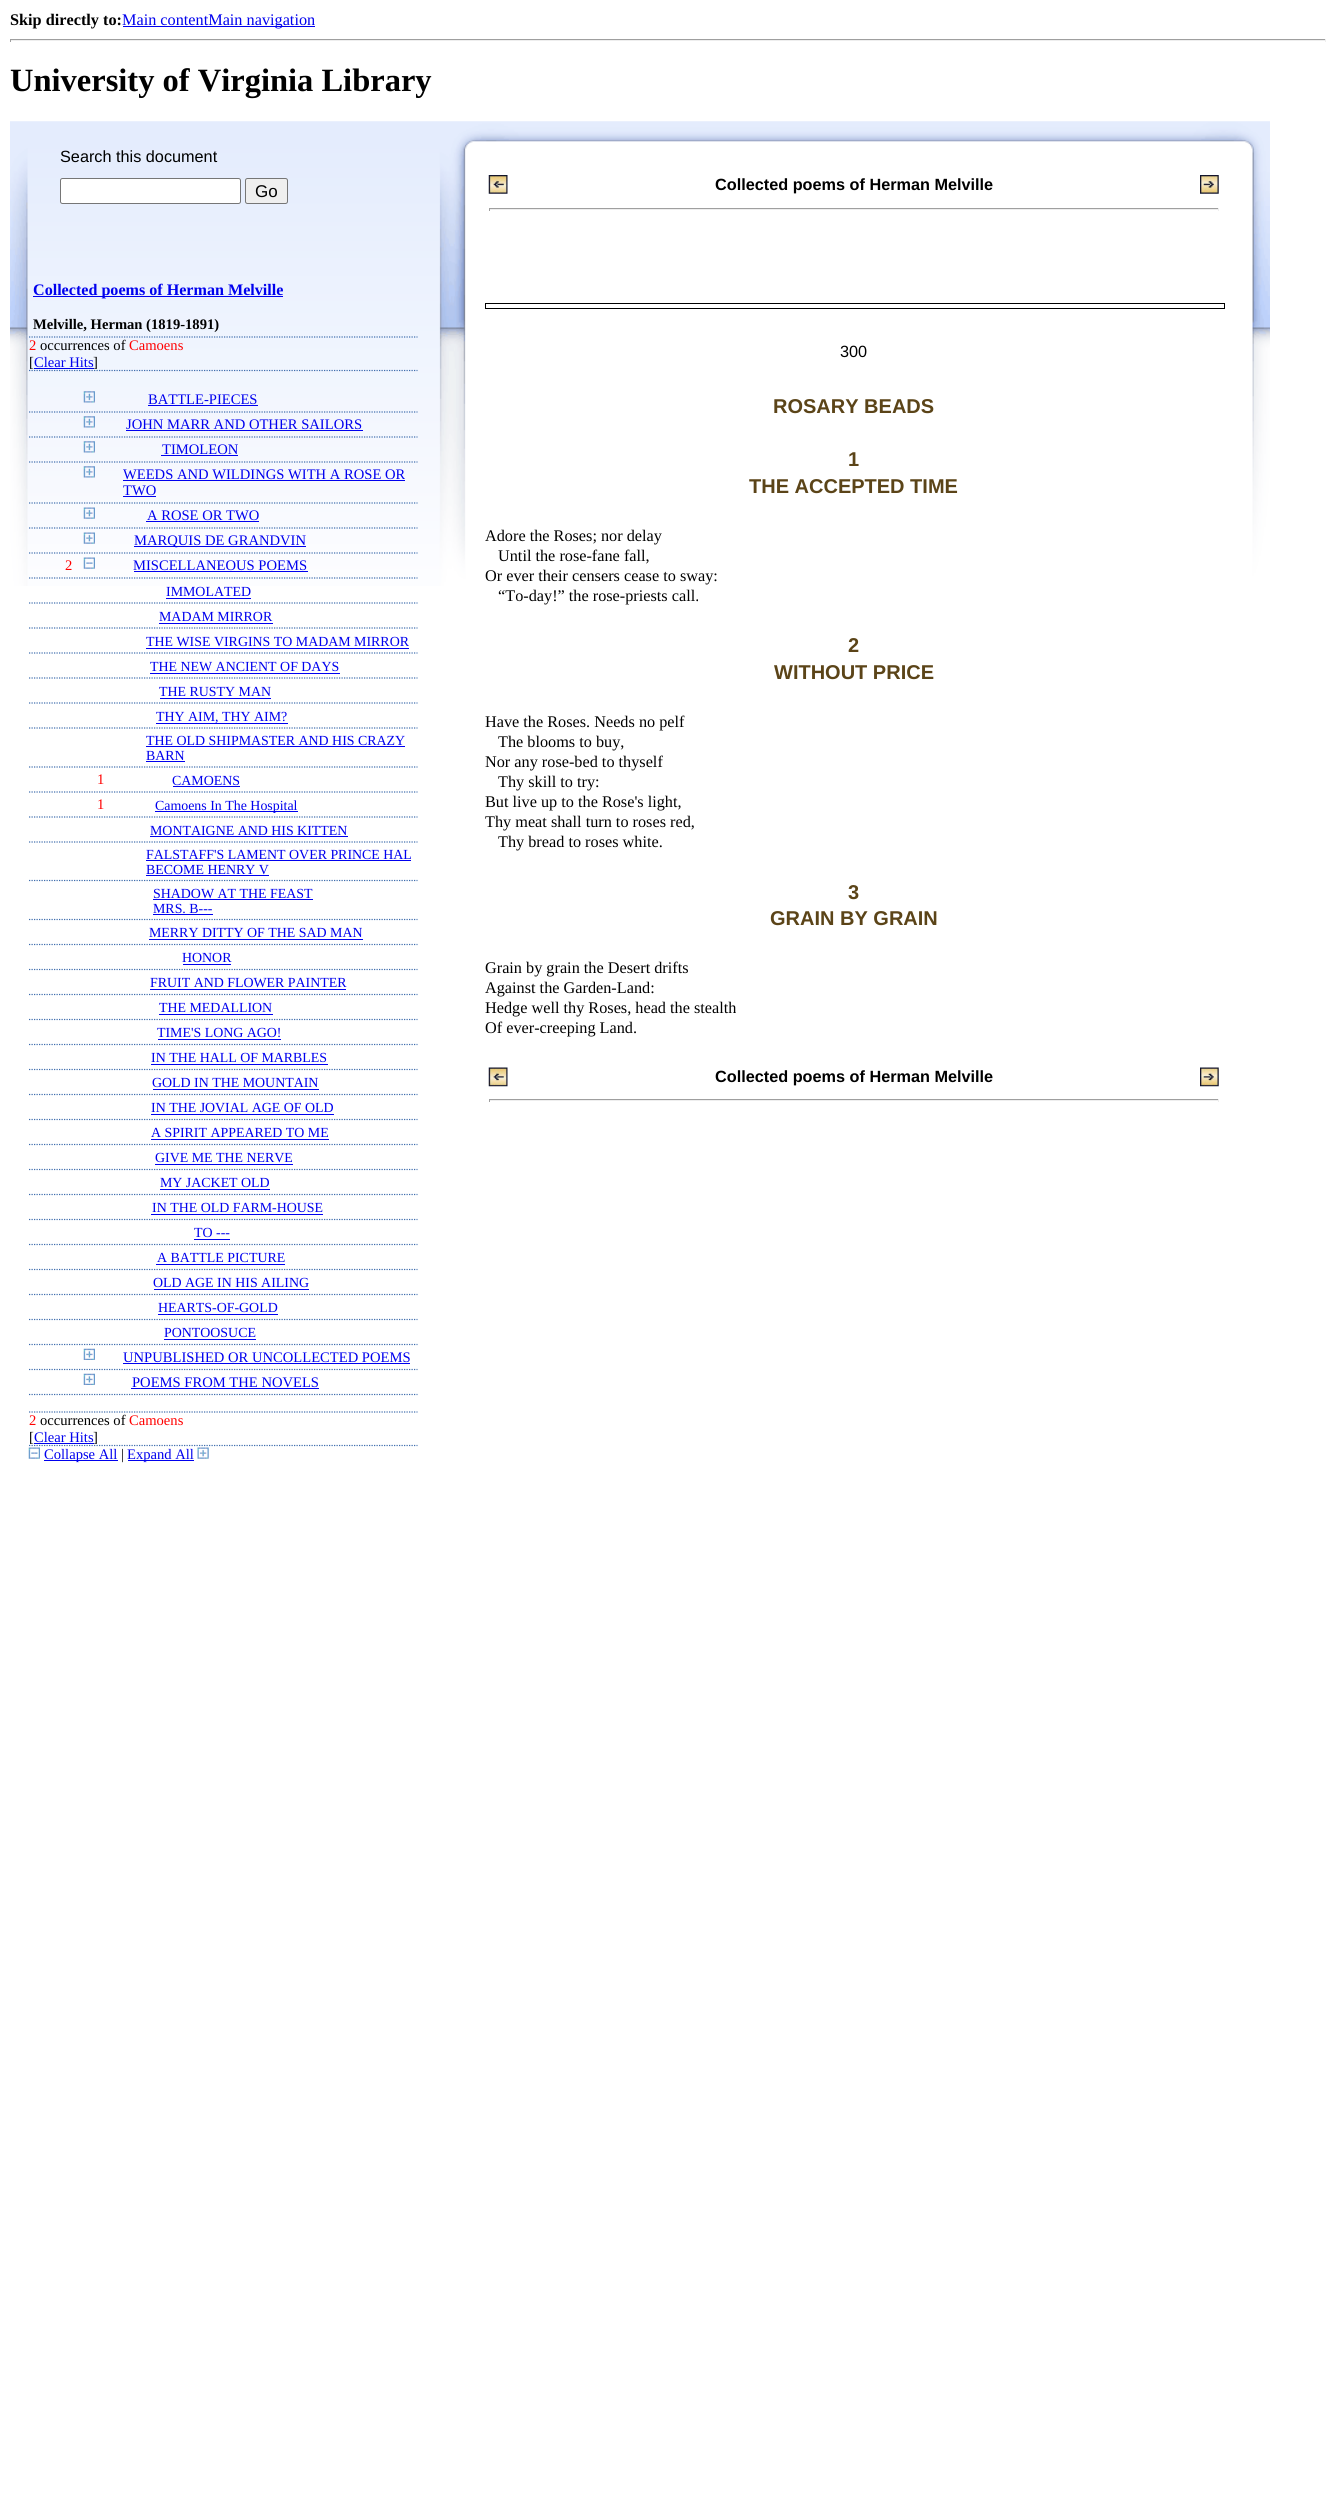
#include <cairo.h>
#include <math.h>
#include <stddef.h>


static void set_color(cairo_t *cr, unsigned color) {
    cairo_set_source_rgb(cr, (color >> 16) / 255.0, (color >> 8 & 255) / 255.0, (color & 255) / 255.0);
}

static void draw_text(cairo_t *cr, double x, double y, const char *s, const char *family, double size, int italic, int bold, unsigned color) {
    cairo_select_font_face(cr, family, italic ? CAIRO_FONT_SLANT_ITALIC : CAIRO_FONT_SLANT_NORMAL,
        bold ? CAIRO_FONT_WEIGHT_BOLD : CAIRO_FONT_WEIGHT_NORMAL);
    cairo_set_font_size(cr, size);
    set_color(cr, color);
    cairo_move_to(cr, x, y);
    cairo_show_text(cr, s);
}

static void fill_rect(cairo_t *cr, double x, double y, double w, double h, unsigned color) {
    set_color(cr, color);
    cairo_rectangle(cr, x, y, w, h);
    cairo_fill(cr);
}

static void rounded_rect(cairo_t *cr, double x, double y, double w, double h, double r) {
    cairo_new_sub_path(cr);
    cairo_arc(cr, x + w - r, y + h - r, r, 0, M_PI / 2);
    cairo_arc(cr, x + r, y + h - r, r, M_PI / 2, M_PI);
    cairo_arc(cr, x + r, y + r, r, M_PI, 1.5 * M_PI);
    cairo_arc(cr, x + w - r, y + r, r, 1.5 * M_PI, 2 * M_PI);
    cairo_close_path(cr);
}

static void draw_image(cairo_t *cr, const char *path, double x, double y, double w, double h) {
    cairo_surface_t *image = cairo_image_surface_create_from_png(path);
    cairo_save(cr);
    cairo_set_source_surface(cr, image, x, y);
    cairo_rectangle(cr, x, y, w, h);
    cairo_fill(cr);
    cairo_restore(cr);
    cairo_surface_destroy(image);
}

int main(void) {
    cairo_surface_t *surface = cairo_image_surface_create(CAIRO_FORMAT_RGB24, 1336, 2512);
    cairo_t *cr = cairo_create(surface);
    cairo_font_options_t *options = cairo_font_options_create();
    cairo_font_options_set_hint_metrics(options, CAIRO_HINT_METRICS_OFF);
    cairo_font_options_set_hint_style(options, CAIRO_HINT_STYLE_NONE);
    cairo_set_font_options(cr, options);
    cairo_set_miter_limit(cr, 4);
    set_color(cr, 0xFFFFFF);
    cairo_paint(cr);
    draw_text(cr, 10, 25, "Skip directly to:", "Liberation Serif", 16.25, 0, 1, 0x000000);
    fill_rect(cr, 123, 26, 192, 1, 0x0000EE);
    draw_text(cr, 122, 25, "Main contentMain navigation", "Liberation Serif", 16.25, 0, 0, 0x0000EE);
    fill_rect(cr, 10, 39, 1316, 1, 0x9F9F9F);
    fill_rect(cr, 1325, 39, 1, 3, 0xEEEEEE);
    fill_rect(cr, 10, 40, 1316, 1, 0xEEEEEE);
    fill_rect(cr, 10, 39, 1, 3, 0x9F9F9F);
    draw_text(cr, 10, 91, "University of Virginia Library", "Liberation Serif", 32.5, 0, 1, 0x000000);
    draw_image(cr, "assets/img1.png", 10, 121, 1260, 465);
    draw_text(cr, 60, 162, "Search this document", "Liberation Sans", 16.25, 0, 0, 0x000000);
    set_color(cr, 0xFFFFFF);
    rounded_rect(cr, 60.5, 178.5, 180, 25, 2);
    cairo_fill_preserve(cr);
    set_color(cr, 0x767676);
    cairo_set_line_width(cr, 1);
    cairo_stroke(cr);
    set_color(cr, 0xEFEFEF);
    rounded_rect(cr, 245.5, 178.5, 42, 25, 2);
    cairo_fill_preserve(cr);
    set_color(cr, 0x767676);
    cairo_stroke(cr);
    draw_text(cr, 255, 197, "Go", "Liberation Sans", 17, 0, 0, 0x000000);
    fill_rect(cr, 33, 296, 250, 1, 0x0000EE);
    draw_text(cr, 33, 295, "Collected poems of Herman Melville", "Liberation Serif", 16.1, 0, 1, 0x0000EE);
    draw_text(cr, 33, 329, "Melville, Herman (1819-1891)", "Liberation Serif", 14.6, 0, 1, 0x000000);
    cairo_new_path(cr);
    cairo_move_to(cr, 29, 337);
    cairo_line_to(cr, 417.5, 337);
    set_color(cr, 0x3F6DAD);
    cairo_set_line_width(cr, 1.2);
    cairo_set_dash(cr, (double[]){1.25, 1.25}, 2, 0);
    cairo_stroke(cr);
    cairo_new_path(cr);
    cairo_move_to(cr, 29, 370.5);
    cairo_line_to(cr, 417.5, 370.5);
    cairo_stroke(cr);
    draw_text(cr, 29, 350, "2", "Liberation Serif", 14.6, 0, 0, 0xFF0000);
    draw_text(cr, 40, 350, "occurrences of", "Liberation Serif", 14.6, 0, 0, 0x000000);
    draw_text(cr, 129, 350, "Camoens", "Liberation Serif", 14.6, 0, 0, 0xFF0000);
    draw_text(cr, 29, 367, "[", "Liberation Serif", 14.6, 0, 0, 0x000000);
    draw_text(cr, 34, 367, "Clear Hits", "Liberation Serif", 14.6, 0, 0, 0x0000EE);
    fill_rect(cr, 34, 368, 60, 1, 0x0000EE);
    draw_text(cr, 93, 367, "]", "Liberation Serif", 14.6, 0, 0, 0x000000);
    cairo_new_path(cr);
    cairo_move_to(cr, 29, 412);
    cairo_line_to(cr, 417.5, 412);
    set_color(cr, 0x3F6DAD);
    cairo_stroke(cr);
    draw_image(cr, "assets/img2.png", 83, 391, 12, 12);
    draw_text(cr, 148, 404, "BATTLE-PIECES", "Liberation Serif", 14.6, 0, 0, 0x0000EE);
    fill_rect(cr, 148, 405, 110, 1, 0x0000EE);
    cairo_new_path(cr);
    cairo_move_to(cr, 29, 437);
    cairo_line_to(cr, 417.5, 437);
    set_color(cr, 0x3F6DAD);
    cairo_stroke(cr);
    draw_image(cr, "assets/img3.png", 83, 416, 12, 12);
    draw_text(cr, 126, 429, "JOHN MARR AND OTHER SAILORS", "Liberation Serif", 14.6, 0, 0, 0x0000EE);
    fill_rect(cr, 126, 430, 237, 1, 0x0000EE);
    cairo_new_path(cr);
    cairo_move_to(cr, 29, 462);
    cairo_line_to(cr, 417.5, 462);
    set_color(cr, 0x3F6DAD);
    cairo_stroke(cr);
    draw_image(cr, "assets/img4.png", 83, 441, 12, 12);
    draw_text(cr, 162, 454, "TIMOLEON", "Liberation Serif", 14.6, 0, 0, 0x0000EE);
    fill_rect(cr, 161, 455, 77, 1, 0x0000EE);
    cairo_new_path(cr);
    cairo_move_to(cr, 29, 503);
    cairo_line_to(cr, 417.5, 503);
    set_color(cr, 0x3F6DAD);
    cairo_stroke(cr);
    draw_image(cr, "assets/img5.png", 83, 466, 12, 12);
    draw_text(cr, 123, 479, "WEEDS AND WILDINGS WITH A ROSE OR", "Liberation Serif", 14.6, 0, 0, 0x0000EE);
    fill_rect(cr, 123, 480, 282, 1, 0x0000EE);
    draw_text(cr, 123, 495, "TWO", "Liberation Serif", 14.6, 0, 0, 0x0000EE);
    fill_rect(cr, 123, 496, 33, 1, 0x0000EE);
    cairo_new_path(cr);
    cairo_move_to(cr, 29, 528);
    cairo_line_to(cr, 417.5, 528);
    set_color(cr, 0x3F6DAD);
    cairo_stroke(cr);
    draw_image(cr, "assets/img6.png", 83, 507, 12, 12);
    draw_text(cr, 147, 520, "A ROSE OR TWO", "Liberation Serif", 14.6, 0, 0, 0x0000EE);
    fill_rect(cr, 146, 521, 113, 1, 0x0000EE);
    cairo_new_path(cr);
    cairo_move_to(cr, 29, 553);
    cairo_line_to(cr, 417.5, 553);
    set_color(cr, 0x3F6DAD);
    cairo_stroke(cr);
    draw_image(cr, "assets/img7.png", 83, 532, 12, 12);
    fill_rect(cr, 134, 546, 172, 1, 0x0000EE);
    draw_text(cr, 134, 545, "MARQUIS DE GRANDVIN", "Liberation Serif", 14.6, 0, 0, 0x0000EE);
    cairo_new_path(cr);
    cairo_move_to(cr, 29, 578);
    cairo_line_to(cr, 417.5, 578);
    set_color(cr, 0x3F6DAD);
    cairo_stroke(cr);
    draw_text(cr, 65, 570, "2", "Liberation Serif", 14.6, 0, 0, 0xFF0000);
    draw_image(cr, "assets/img8.png", 83, 557, 12, 12);
    draw_text(cr, 133, 570, "MISCELLANEOUS POEMS", "Liberation Serif", 14.6, 0, 0, 0x0000EE);
    fill_rect(cr, 134, 571, 174, 1, 0x0000EE);
    cairo_new_path(cr);
    cairo_move_to(cr, 29, 603);
    cairo_line_to(cr, 417.5, 603);
    set_color(cr, 0x3F6DAD);
    cairo_stroke(cr);
    draw_text(cr, 166, 596, "IMMOLATED", "Liberation Serif", 13.9, 0, 0, 0x0000EE);
    fill_rect(cr, 166, 598, 85, 1, 0x0000EE);
    cairo_new_path(cr);
    cairo_move_to(cr, 29, 628);
    cairo_line_to(cr, 417.5, 628);
    set_color(cr, 0x3F6DAD);
    cairo_stroke(cr);
    draw_text(cr, 159, 621, "MADAM MIRROR", "Liberation Serif", 13.9, 0, 0, 0x0000EE);
    fill_rect(cr, 159, 623, 114, 1, 0x0000EE);
    cairo_new_path(cr);
    cairo_move_to(cr, 29, 653);
    cairo_line_to(cr, 417.5, 653);
    set_color(cr, 0x3F6DAD);
    cairo_stroke(cr);
    draw_text(cr, 146, 646, "THE WISE VIRGINS TO MADAM MIRROR", "Liberation Serif", 13.9, 0, 0, 0x0000EE);
    fill_rect(cr, 146, 648, 263, 1, 0x0000EE);
    cairo_new_path(cr);
    cairo_move_to(cr, 29, 678);
    cairo_line_to(cr, 417.5, 678);
    set_color(cr, 0x3F6DAD);
    cairo_stroke(cr);
    draw_text(cr, 150, 671, "THE NEW ANCIENT OF DAYS", "Liberation Serif", 13.9, 0, 0, 0x0000EE);
    fill_rect(cr, 150, 673, 190, 1, 0x0000EE);
    cairo_new_path(cr);
    cairo_move_to(cr, 29, 703);
    cairo_line_to(cr, 417.5, 703);
    set_color(cr, 0x3F6DAD);
    cairo_stroke(cr);
    draw_text(cr, 159, 696, "THE RUSTY MAN", "Liberation Serif", 13.9, 0, 0, 0x0000EE);
    fill_rect(cr, 160, 698, 111, 1, 0x0000EE);
    cairo_new_path(cr);
    cairo_move_to(cr, 29, 728);
    cairo_line_to(cr, 417.5, 728);
    set_color(cr, 0x3F6DAD);
    cairo_stroke(cr);
    fill_rect(cr, 156, 723, 132, 1, 0x0000EE);
    draw_text(cr, 156, 721, "THY AIM, THY AIM?", "Liberation Serif", 13.9, 0, 0, 0x0000EE);
    cairo_new_path(cr);
    cairo_move_to(cr, 29, 767);
    cairo_line_to(cr, 417.5, 767);
    set_color(cr, 0x3F6DAD);
    cairo_stroke(cr);
    draw_text(cr, 146, 745, "THE OLD SHIPMASTER AND HIS CRAZY", "Liberation Serif", 13.9, 0, 0, 0x0000EE);
    fill_rect(cr, 146, 746, 259, 1, 0x0000EE);
    draw_text(cr, 146, 760, "BARN", "Liberation Serif", 13.9, 0, 0, 0x0000EE);
    fill_rect(cr, 146, 761, 39, 1, 0x0000EE);
    cairo_new_path(cr);
    cairo_move_to(cr, 29, 792);
    cairo_line_to(cr, 417.5, 792);
    set_color(cr, 0x3F6DAD);
    cairo_stroke(cr);
    draw_text(cr, 97, 784, "1", "Liberation Serif", 14.6, 0, 0, 0xFF0000);
    draw_text(cr, 172, 785, "CAMOENS", "Liberation Serif", 13.9, 0, 0, 0x0000EE);
    fill_rect(cr, 173, 786, 67, 1, 0x0000EE);
    cairo_new_path(cr);
    cairo_move_to(cr, 29, 817);
    cairo_line_to(cr, 417.5, 817);
    set_color(cr, 0x3F6DAD);
    cairo_stroke(cr);
    draw_text(cr, 97, 809, "1", "Liberation Serif", 14.6, 0, 0, 0xFF0000);
    fill_rect(cr, 155, 811, 143, 1, 0x0000EE);
    draw_text(cr, 155, 810, "Camoens In The Hospital", "Liberation Serif", 13.9, 0, 0, 0x0000EE);
    cairo_new_path(cr);
    cairo_move_to(cr, 29, 842);
    cairo_line_to(cr, 417.5, 842);
    set_color(cr, 0x3F6DAD);
    cairo_stroke(cr);
    draw_text(cr, 150, 835, "MONTAIGNE AND HIS KITTEN", "Liberation Serif", 13.9, 0, 0, 0x0000EE);
    fill_rect(cr, 150, 836, 198, 1, 0x0000EE);
    cairo_new_path(cr);
    cairo_move_to(cr, 29, 880.5);
    cairo_line_to(cr, 417.5, 880.5);
    set_color(cr, 0x3F6DAD);
    cairo_stroke(cr);
    draw_text(cr, 146, 859, "FALSTAFF'S LAMENT OVER PRINCE HAL", "Liberation Serif", 13.9, 0, 0, 0x0000EE);
    fill_rect(cr, 146, 860, 265, 1, 0x0000EE);
    draw_text(cr, 146, 874, "BECOME HENRY V", "Liberation Serif", 13.9, 0, 0, 0x0000EE);
    fill_rect(cr, 146, 875, 123, 1, 0x0000EE);
    cairo_new_path(cr);
    cairo_move_to(cr, 29, 919.5);
    cairo_line_to(cr, 417.5, 919.5);
    set_color(cr, 0x3F6DAD);
    cairo_stroke(cr);
    draw_text(cr, 153, 898, "SHADOW AT THE FEAST", "Liberation Serif", 13.9, 0, 0, 0x0000EE);
    fill_rect(cr, 153, 899, 160, 1, 0x0000EE);
    draw_text(cr, 153, 913, "MRS. B---", "Liberation Serif", 13.9, 0, 0, 0x0000EE);
    fill_rect(cr, 153, 914, 60, 1, 0x0000EE);
    cairo_new_path(cr);
    cairo_move_to(cr, 29, 944.5);
    cairo_line_to(cr, 417.5, 944.5);
    set_color(cr, 0x3F6DAD);
    cairo_stroke(cr);
    draw_text(cr, 149, 937, "MERRY DITTY OF THE SAD MAN", "Liberation Serif", 13.9, 0, 0, 0x0000EE);
    fill_rect(cr, 149, 939, 214, 1, 0x0000EE);
    cairo_new_path(cr);
    cairo_move_to(cr, 29, 969.5);
    cairo_line_to(cr, 417.5, 969.5);
    set_color(cr, 0x3F6DAD);
    cairo_stroke(cr);
    draw_text(cr, 182, 962, "HONOR", "Liberation Serif", 13.9, 0, 0, 0x0000EE);
    fill_rect(cr, 183, 964, 48, 1, 0x0000EE);
    cairo_new_path(cr);
    cairo_move_to(cr, 29, 994.5);
    cairo_line_to(cr, 417.5, 994.5);
    set_color(cr, 0x3F6DAD);
    cairo_stroke(cr);
    draw_text(cr, 150, 987, "FRUIT AND FLOWER PAINTER", "Liberation Serif", 13.9, 0, 0, 0x0000EE);
    fill_rect(cr, 150, 989, 196, 1, 0x0000EE);
    cairo_new_path(cr);
    cairo_move_to(cr, 29, 1019.5);
    cairo_line_to(cr, 417.5, 1019.5);
    set_color(cr, 0x3F6DAD);
    cairo_stroke(cr);
    draw_text(cr, 159, 1012, "THE MEDALLION", "Liberation Serif", 13.9, 0, 0, 0x0000EE);
    fill_rect(cr, 159, 1014, 114, 1, 0x0000EE);
    cairo_new_path(cr);
    cairo_move_to(cr, 29, 1044.5);
    cairo_line_to(cr, 417.5, 1044.5);
    set_color(cr, 0x3F6DAD);
    cairo_stroke(cr);
    draw_text(cr, 157, 1037, "TIME'S LONG AGO!", "Liberation Serif", 13.9, 0, 0, 0x0000EE);
    fill_rect(cr, 158, 1039, 123, 1, 0x0000EE);
    cairo_new_path(cr);
    cairo_move_to(cr, 29, 1069.5);
    cairo_line_to(cr, 417.5, 1069.5);
    set_color(cr, 0x3F6DAD);
    cairo_stroke(cr);
    draw_text(cr, 151, 1062, "IN THE HALL OF MARBLES", "Liberation Serif", 13.9, 0, 0, 0x0000EE);
    fill_rect(cr, 151, 1064, 177, 1, 0x0000EE);
    cairo_new_path(cr);
    cairo_move_to(cr, 29, 1094.5);
    cairo_line_to(cr, 417.5, 1094.5);
    set_color(cr, 0x3F6DAD);
    cairo_stroke(cr);
    draw_text(cr, 152, 1087, "GOLD IN THE MOUNTAIN", "Liberation Serif", 13.9, 0, 0, 0x0000EE);
    fill_rect(cr, 153, 1089, 166, 1, 0x0000EE);
    cairo_new_path(cr);
    cairo_move_to(cr, 29, 1119.5);
    cairo_line_to(cr, 417.5, 1119.5);
    set_color(cr, 0x3F6DAD);
    cairo_stroke(cr);
    draw_text(cr, 151, 1112, "IN THE JOVIAL AGE OF OLD", "Liberation Serif", 13.9, 0, 0, 0x0000EE);
    fill_rect(cr, 151, 1114, 183, 1, 0x0000EE);
    cairo_new_path(cr);
    cairo_move_to(cr, 29, 1144.5);
    cairo_line_to(cr, 417.5, 1144.5);
    set_color(cr, 0x3F6DAD);
    cairo_stroke(cr);
    draw_text(cr, 151, 1137, "A SPIRIT APPEARED TO ME", "Liberation Serif", 13.9, 0, 0, 0x0000EE);
    fill_rect(cr, 151, 1139, 178, 1, 0x0000EE);
    cairo_new_path(cr);
    cairo_move_to(cr, 29, 1169.5);
    cairo_line_to(cr, 417.5, 1169.5);
    set_color(cr, 0x3F6DAD);
    cairo_stroke(cr);
    draw_text(cr, 155, 1162, "GIVE ME THE NERVE", "Liberation Serif", 13.9, 0, 0, 0x0000EE);
    fill_rect(cr, 155, 1164, 138, 1, 0x0000EE);
    cairo_new_path(cr);
    cairo_move_to(cr, 29, 1194.5);
    cairo_line_to(cr, 417.5, 1194.5);
    set_color(cr, 0x3F6DAD);
    cairo_stroke(cr);
    draw_text(cr, 160, 1187, "MY JACKET OLD", "Liberation Serif", 13.9, 0, 0, 0x0000EE);
    fill_rect(cr, 160, 1189, 110, 1, 0x0000EE);
    cairo_new_path(cr);
    cairo_move_to(cr, 29, 1219.5);
    cairo_line_to(cr, 417.5, 1219.5);
    set_color(cr, 0x3F6DAD);
    cairo_stroke(cr);
    draw_text(cr, 152, 1212, "IN THE OLD FARM-HOUSE", "Liberation Serif", 13.9, 0, 0, 0x0000EE);
    fill_rect(cr, 151, 1214, 172, 1, 0x0000EE);
    cairo_new_path(cr);
    cairo_move_to(cr, 29, 1244.5);
    cairo_line_to(cr, 417.5, 1244.5);
    set_color(cr, 0x3F6DAD);
    cairo_stroke(cr);
    draw_text(cr, 194, 1237, "TO ---", "Liberation Serif", 13.9, 0, 0, 0x0000EE);
    fill_rect(cr, 194, 1239, 36, 1, 0x0000EE);
    cairo_new_path(cr);
    cairo_move_to(cr, 29, 1269.5);
    cairo_line_to(cr, 417.5, 1269.5);
    set_color(cr, 0x3F6DAD);
    cairo_stroke(cr);
    draw_text(cr, 157, 1262, "A BATTLE PICTURE", "Liberation Serif", 13.9, 0, 0, 0x0000EE);
    fill_rect(cr, 156, 1264, 129, 1, 0x0000EE);
    cairo_new_path(cr);
    cairo_move_to(cr, 29, 1294.5);
    cairo_line_to(cr, 417.5, 1294.5);
    set_color(cr, 0x3F6DAD);
    cairo_stroke(cr);
    draw_text(cr, 153, 1287, "OLD AGE IN HIS AILING", "Liberation Serif", 13.9, 0, 0, 0x0000EE);
    fill_rect(cr, 154, 1289, 155, 1, 0x0000EE);
    cairo_new_path(cr);
    cairo_move_to(cr, 29, 1319.5);
    cairo_line_to(cr, 417.5, 1319.5);
    set_color(cr, 0x3F6DAD);
    cairo_stroke(cr);
    draw_text(cr, 158, 1312, "HEARTS-OF-GOLD", "Liberation Serif", 13.9, 0, 0, 0x0000EE);
    fill_rect(cr, 158, 1314, 120, 1, 0x0000EE);
    cairo_new_path(cr);
    cairo_move_to(cr, 29, 1344.5);
    cairo_line_to(cr, 417.5, 1344.5);
    set_color(cr, 0x3F6DAD);
    cairo_stroke(cr);
    draw_text(cr, 164, 1337, "PONTOOSUCE", "Liberation Serif", 13.9, 0, 0, 0x0000EE);
    fill_rect(cr, 164, 1339, 92, 1, 0x0000EE);
    cairo_new_path(cr);
    cairo_move_to(cr, 29, 1369.5);
    cairo_line_to(cr, 417.5, 1369.5);
    set_color(cr, 0x3F6DAD);
    cairo_stroke(cr);
    draw_image(cr, "assets/img9.png", 83, 1348, 12, 12);
    draw_text(cr, 123, 1362, "UNPUBLISHED OR UNCOLLECTED POEMS", "Liberation Serif", 14.6, 0, 0, 0x0000EE);
    fill_rect(cr, 123, 1363, 287, 1, 0x0000EE);
    cairo_new_path(cr);
    cairo_move_to(cr, 29, 1394.5);
    cairo_line_to(cr, 417.5, 1394.5);
    set_color(cr, 0x3F6DAD);
    cairo_stroke(cr);
    draw_image(cr, "assets/img9.png", 83, 1373, 12, 12);
    draw_text(cr, 132, 1387, "POEMS FROM THE NOVELS", "Liberation Serif", 14.6, 0, 0, 0x0000EE);
    fill_rect(cr, 131, 1388, 188, 1, 0x0000EE);
    cairo_new_path(cr);
    cairo_move_to(cr, 29, 1412);
    cairo_line_to(cr, 417.5, 1412);
    set_color(cr, 0x3F6DAD);
    cairo_stroke(cr);
    cairo_new_path(cr);
    cairo_move_to(cr, 29, 1445.5);
    cairo_line_to(cr, 417.5, 1445.5);
    cairo_stroke(cr);
    draw_text(cr, 29, 1425, "2", "Liberation Serif", 14.6, 0, 0, 0xFF0000);
    draw_text(cr, 40, 1425, "occurrences of", "Liberation Serif", 14.6, 0, 0, 0x000000);
    draw_text(cr, 129, 1425, "Camoens", "Liberation Serif", 14.6, 0, 0, 0xFF0000);
    draw_text(cr, 29, 1442, "[", "Liberation Serif", 14.6, 0, 0, 0x000000);
    draw_text(cr, 34, 1442, "Clear Hits", "Liberation Serif", 14.6, 0, 0, 0x0000EE);
    fill_rect(cr, 34, 1443, 60, 1, 0x0000EE);
    draw_text(cr, 93, 1442, "]", "Liberation Serif", 14.6, 0, 0, 0x000000);
    draw_image(cr, "assets/img10.png", 28, 1447, 12, 12);
    fill_rect(cr, 44, 1460, 74, 1, 0x0000EE);
    draw_text(cr, 44, 1459, "Collapse All", "Liberation Serif", 14.6, 0, 0, 0x0000EE);
    draw_text(cr, 121, 1459, "|", "Liberation Serif", 14.6, 0, 0, 0x000000);
    fill_rect(cr, 128, 1460, 66, 1, 0x0000EE);
    draw_text(cr, 127, 1459, "Expand All", "Liberation Serif", 14.6, 0, 0, 0x0000EE);
    draw_image(cr, "assets/img11.png", 197, 1447, 12, 12);
    draw_image(cr, "assets/img12.png", 488, 175, 20, 19);
    draw_text(cr, 715, 190, "Collected poems of Herman Melville", "Liberation Sans", 16.25, 0, 1, 0x000000);
    draw_image(cr, "assets/img13.png", 1200, 175, 19, 19);
    fill_rect(cr, 489, 208, 730, 1, 0x9F9F9F);
    fill_rect(cr, 1218, 208, 1, 3, 0xEEEEEE);
    fill_rect(cr, 489, 209, 730, 1, 0xEEEEEE);
    fill_rect(cr, 489, 208, 1, 3, 0x9F9F9F);
    cairo_rectangle(cr, 485.5, 303.5, 739, 5);
    set_color(cr, 0x000000);
    cairo_set_line_width(cr, 1);
    cairo_set_dash(cr, NULL, 0, 0);
    cairo_stroke(cr);
    draw_text(cr, 840, 357, "300", "Liberation Sans", 16.25, 0, 0, 0x000000);
    draw_text(cr, 773, 413, "ROSARY BEADS", "Liberation Sans", 20, 0, 1, 0x5B4418);
    draw_text(cr, 848, 466, "1", "Liberation Sans", 20, 0, 1, 0x5B4418);
    draw_text(cr, 749, 493, "THE ACCEPTED TIME", "Liberation Sans", 20, 0, 1, 0x5B4418);
    draw_text(cr, 485, 541, "Adore the Roses; nor delay", "Liberation Serif", 16.25, 0, 0, 0x000000);
    draw_text(cr, 498, 561, "Until the rose-fane fall,", "Liberation Serif", 16.25, 0, 0, 0x000000);
    draw_text(cr, 485, 581, "Or ever their censers cease to sway:", "Liberation Serif", 16.25, 0, 0, 0x000000);
    draw_text(cr, 498, 601, "“To-day!” the rose-priests call.", "Liberation Serif", 16.25, 0, 0, 0x000000);
    draw_text(cr, 848, 652, "2", "Liberation Sans", 20, 0, 1, 0x5B4418);
    draw_text(cr, 774, 679, "WITHOUT PRICE", "Liberation Sans", 20, 0, 1, 0x5B4418);
    draw_text(cr, 485, 727, "Have the Roses. Needs no pelf", "Liberation Serif", 16.25, 0, 0, 0x000000);
    draw_text(cr, 498, 747, "The blooms to buy,", "Liberation Serif", 16.25, 0, 0, 0x000000);
    draw_text(cr, 485, 767, "Nor any rose-bed to thyself", "Liberation Serif", 16.25, 0, 0, 0x000000);
    draw_text(cr, 498, 787, "Thy skill to try:", "Liberation Serif", 16.25, 0, 0, 0x000000);
    draw_text(cr, 485, 807, "But live up to the Rose's light,", "Liberation Serif", 16.25, 0, 0, 0x000000);
    draw_text(cr, 485, 827, "Thy meat shall turn to roses red,", "Liberation Serif", 16.25, 0, 0, 0x000000);
    draw_text(cr, 498, 847, "Thy bread to roses white.", "Liberation Serif", 16.25, 0, 0, 0x000000);
    draw_text(cr, 848, 899, "3", "Liberation Sans", 20, 0, 1, 0x5B4418);
    draw_text(cr, 770, 925, "GRAIN BY GRAIN", "Liberation Sans", 20, 0, 1, 0x5B4418);
    draw_text(cr, 485, 973, "Grain by grain the Desert drifts", "Liberation Serif", 16.25, 0, 0, 0x000000);
    draw_text(cr, 485, 993, "Against the Garden-Land:", "Liberation Serif", 16.25, 0, 0, 0x000000);
    draw_text(cr, 485, 1013, "Hedge well thy Roses, head the stealth", "Liberation Serif", 16.25, 0, 0, 0x000000);
    draw_text(cr, 485, 1033, "Of ever-creeping Land.", "Liberation Serif", 16.25, 0, 0, 0x000000);
    draw_image(cr, "assets/img14.png", 488, 1067, 20, 20);
    draw_text(cr, 715, 1082, "Collected poems of Herman Melville", "Liberation Sans", 16.25, 0, 1, 0x000000);
    draw_image(cr, "assets/img15.png", 1200, 1067, 19, 20);
    fill_rect(cr, 489, 1099, 730, 1, 0x9F9F9F);
    fill_rect(cr, 1218, 1099, 1, 3, 0xEEEEEE);
    fill_rect(cr, 489, 1100, 730, 1, 0xEEEEEE);
    fill_rect(cr, 489, 1099, 1, 3, 0x9F9F9F);
    cairo_surface_write_to_png(surface, "output.png");
    cairo_font_options_destroy(options);
    cairo_destroy(cr);
    cairo_surface_destroy(surface);
    return 0;
}
